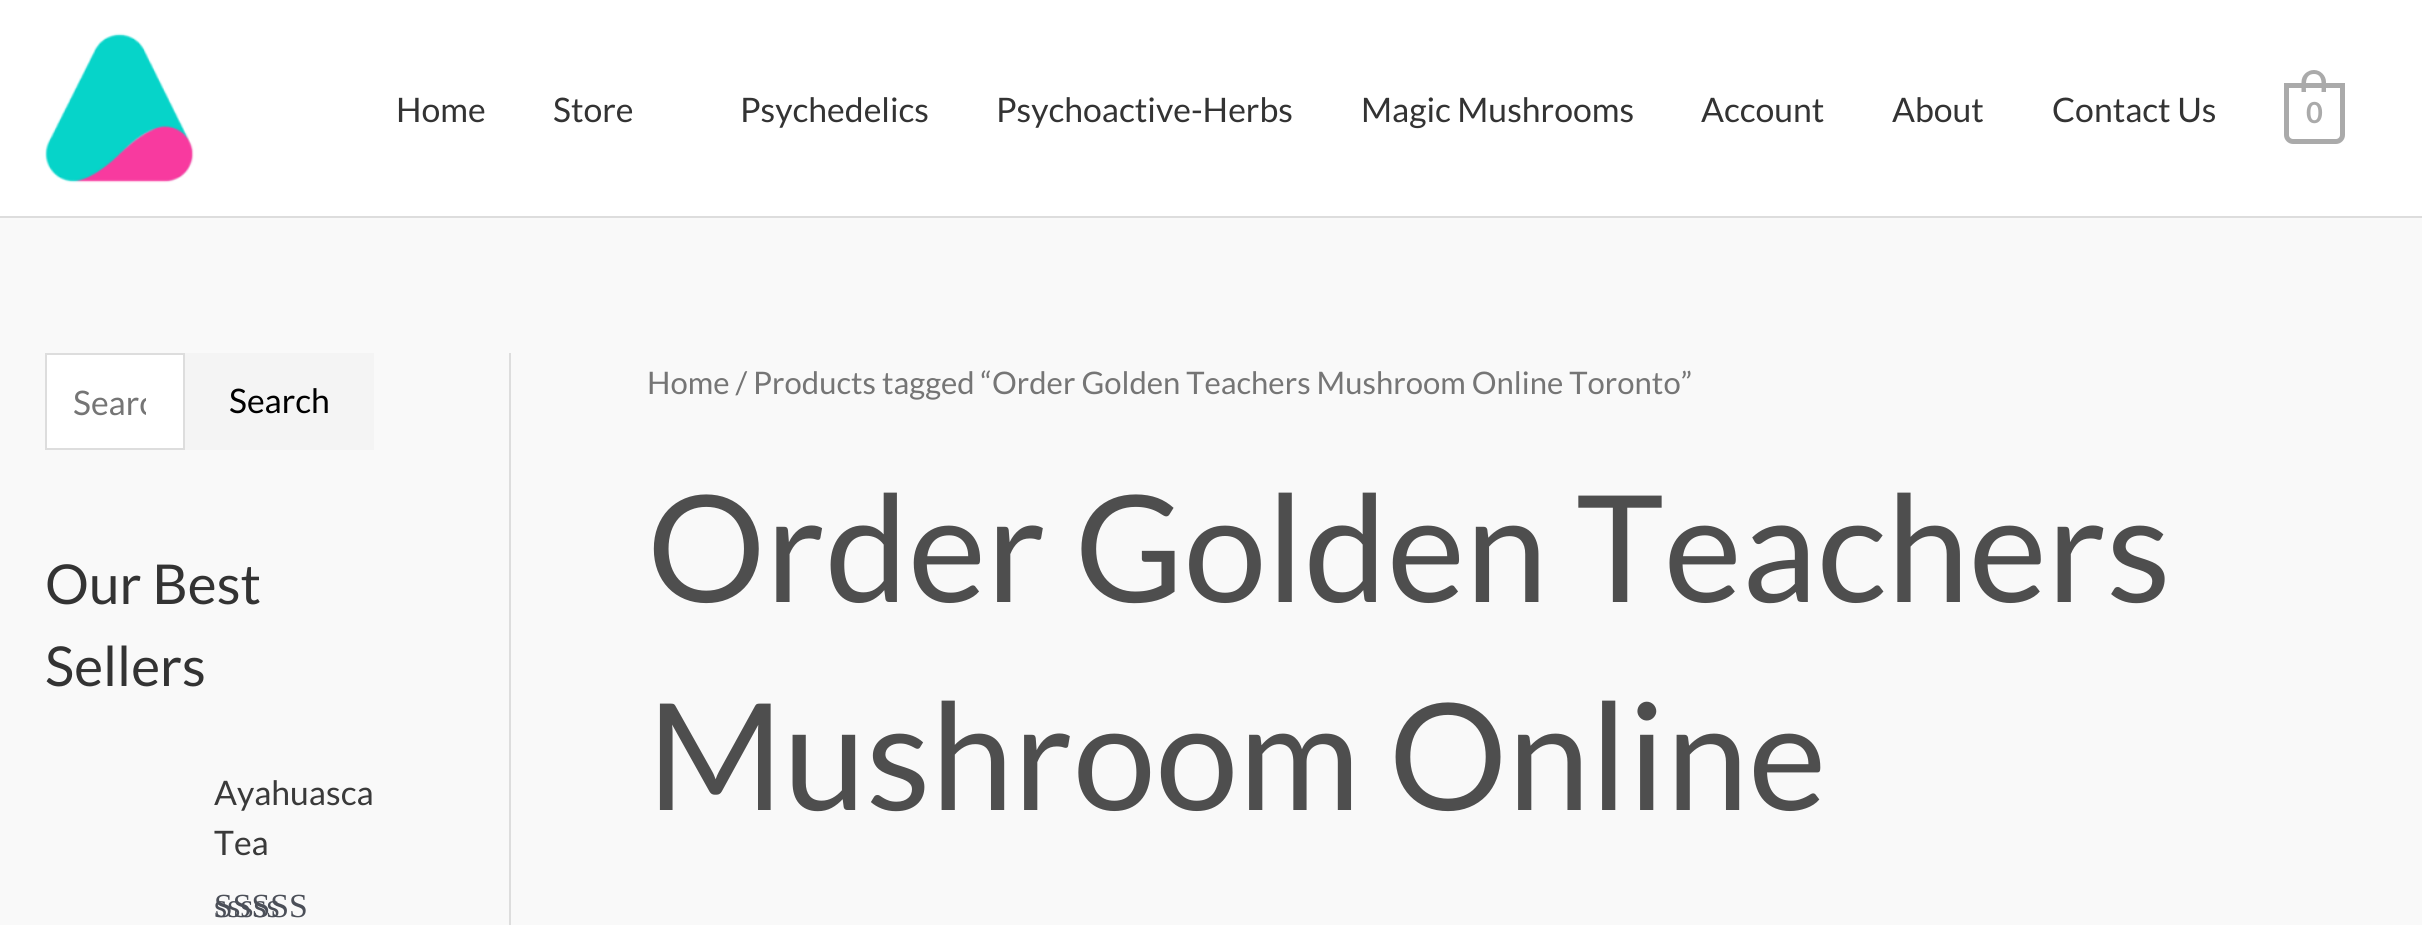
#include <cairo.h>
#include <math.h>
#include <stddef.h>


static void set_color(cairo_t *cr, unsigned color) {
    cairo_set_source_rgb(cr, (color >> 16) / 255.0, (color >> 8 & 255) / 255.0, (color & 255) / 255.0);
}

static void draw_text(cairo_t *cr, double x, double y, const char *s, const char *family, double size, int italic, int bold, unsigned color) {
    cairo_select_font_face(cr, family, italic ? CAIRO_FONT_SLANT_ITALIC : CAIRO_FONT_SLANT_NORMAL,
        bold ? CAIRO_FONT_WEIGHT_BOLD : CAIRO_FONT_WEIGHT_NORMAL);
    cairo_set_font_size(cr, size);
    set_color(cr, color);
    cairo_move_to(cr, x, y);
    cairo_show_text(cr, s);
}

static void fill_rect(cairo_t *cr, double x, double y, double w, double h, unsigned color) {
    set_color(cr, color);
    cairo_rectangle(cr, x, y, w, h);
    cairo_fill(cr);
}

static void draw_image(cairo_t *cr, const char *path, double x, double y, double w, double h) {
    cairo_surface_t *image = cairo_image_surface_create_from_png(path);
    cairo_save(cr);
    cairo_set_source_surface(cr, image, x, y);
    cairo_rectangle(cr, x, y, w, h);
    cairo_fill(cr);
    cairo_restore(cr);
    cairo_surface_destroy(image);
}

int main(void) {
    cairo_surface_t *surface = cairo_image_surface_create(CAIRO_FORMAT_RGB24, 2422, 925);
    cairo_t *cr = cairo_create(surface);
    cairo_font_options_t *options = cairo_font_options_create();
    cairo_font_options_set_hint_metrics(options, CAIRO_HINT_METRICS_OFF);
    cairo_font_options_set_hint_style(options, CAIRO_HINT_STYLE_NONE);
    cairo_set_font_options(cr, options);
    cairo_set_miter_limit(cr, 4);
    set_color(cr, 0xF9F9F9);
    cairo_paint(cr);
    fill_rect(cr, 0, 0, 2422, 216, 0xFFFFFF);
    fill_rect(cr, 0, 216, 2422, 2, 0xDDDDDD);
    draw_image(cr, "assets/img1.png", 45, 33, 149, 150);
    draw_text(cr, 396, 122, "Home", "Lato", 33.75, 0, 0, 0x333333);
    draw_text(cr, 553, 122, "Store", "Lato", 33.75, 0, 0, 0x333333);
    draw_text(cr, 740, 122, "Psychedelics", "Lato", 33.75, 0, 0, 0x333333);
    draw_text(cr, 996, 122, "Psychoactive-Herbs", "Lato", 33.75, 0, 0, 0x333333);
    draw_text(cr, 1361, 122, "Magic Mushrooms", "Lato", 33.75, 0, 0, 0x333333);
    draw_text(cr, 1701, 122, "Account", "Lato", 33.75, 0, 0, 0x333333);
    draw_text(cr, 1892, 122, "About", "Lato", 33.75, 0, 0, 0x333333);
    draw_text(cr, 2052, 122, "Contact Us", "Lato", 33.75, 0, 0, 0x333333);
    cairo_new_path(cr);
    cairo_move_to(cr, 2286.5, 85.5);
    cairo_line_to(cr, 2342.5, 85.5);
    cairo_line_to(cr, 2342.5, 135);
    cairo_curve_to(cr, 2342.5, 138.5, 2339.5, 141.5, 2336, 141.5);
    cairo_line_to(cr, 2293, 141.5);
    cairo_curve_to(cr, 2289.5, 141.5, 2286.5, 138.5, 2286.5, 135);
    cairo_close_path(cr);
    set_color(cr, 0xAAAAAA);
    cairo_set_line_width(cr, 5);
    cairo_stroke(cr);
    cairo_set_fill_rule(cr, CAIRO_FILL_RULE_EVEN_ODD);
    cairo_new_path(cr);
    cairo_move_to(cr, 2314, 70);
    cairo_curve_to(cr, 2320.5, 70, 2326, 75.5, 2326, 82);
    cairo_line_to(cr, 2326, 92);
    cairo_line_to(cr, 2301.5, 92);
    cairo_line_to(cr, 2301.5, 82);
    cairo_curve_to(cr, 2301.5, 75.5, 2307, 70, 2314, 70);
    cairo_close_path(cr);
    cairo_move_to(cr, 2314, 74);
    cairo_curve_to(cr, 2323.5, 74, 2321.5, 86, 2321.5, 92);
    cairo_line_to(cr, 2306, 92);
    cairo_curve_to(cr, 2306, 86, 2304, 74, 2314, 74);
    cairo_close_path(cr);
    cairo_fill(cr);
    draw_text(cr, 2306, 123, "0", "Lato", 29, 0, 1, 0xAAAAAA);
    fill_rect(cr, 509, 353, 2, 572, 0xDDDDDD);
    set_color(cr, 0xFFFFFF);
    cairo_rectangle(cr, 46, 354, 138, 95);
    cairo_fill_preserve(cr);
    set_color(cr, 0xDDDDDD);
    cairo_set_line_width(cr, 2);
    cairo_stroke(cr);
    cairo_save(cr);
    cairo_set_fill_rule(cr, CAIRO_FILL_RULE_WINDING);
    cairo_rectangle(cr, 72, 380, 74, 41);
    cairo_clip(cr);
    draw_text(cr, 73, 415, "Searc", "Lato", 33.75, 0, 0, 0x757575);
    cairo_restore(cr);
    fill_rect(cr, 185, 353, 189, 97, 0xF4F4F4);
    draw_text(cr, 229, 413, "Search", "Lato", 33.75, 0, 0, 0x000000);
    draw_text(cr, 45, 604, "Our Best", "Lato", 55, 0, 0, 0x333333);
    draw_text(cr, 45, 686, "Sellers", "Lato", 55, 0, 0, 0x333333);
    draw_text(cr, 214, 805, "Ayahuasca", "Lato", 33.75, 0, 0, 0x3A3A3A);
    draw_text(cr, 214, 855, "Tea", "Lato", 33.75, 0, 0, 0x3A3A3A);
    draw_text(cr, 214, 917, "sssss", "Liberation Serif", 33.75, 0, 0, 0x4B4F58);
    draw_text(cr, 214, 917, "SSSSS", "Liberation Serif", 33.75, 0, 0, 0x4B4F58);
    draw_text(cr, 647, 394, "Home / Products tagged “Order Golden Teachers Mushroom Online Toronto”", "Lato", 31.05, 0, 0, 0x757575);
    draw_text(cr, 647, 602, "Order Golden Teachers", "Lato", 148.5, 0, 0, 0x4E4E4E);
    draw_text(cr, 647, 810, "Mushroom Online", "Lato", 148.5, 0, 0, 0x4E4E4E);
    cairo_surface_write_to_png(surface, "output.png");
    cairo_font_options_destroy(options);
    cairo_destroy(cr);
    cairo_surface_destroy(surface);
    return 0;
}
